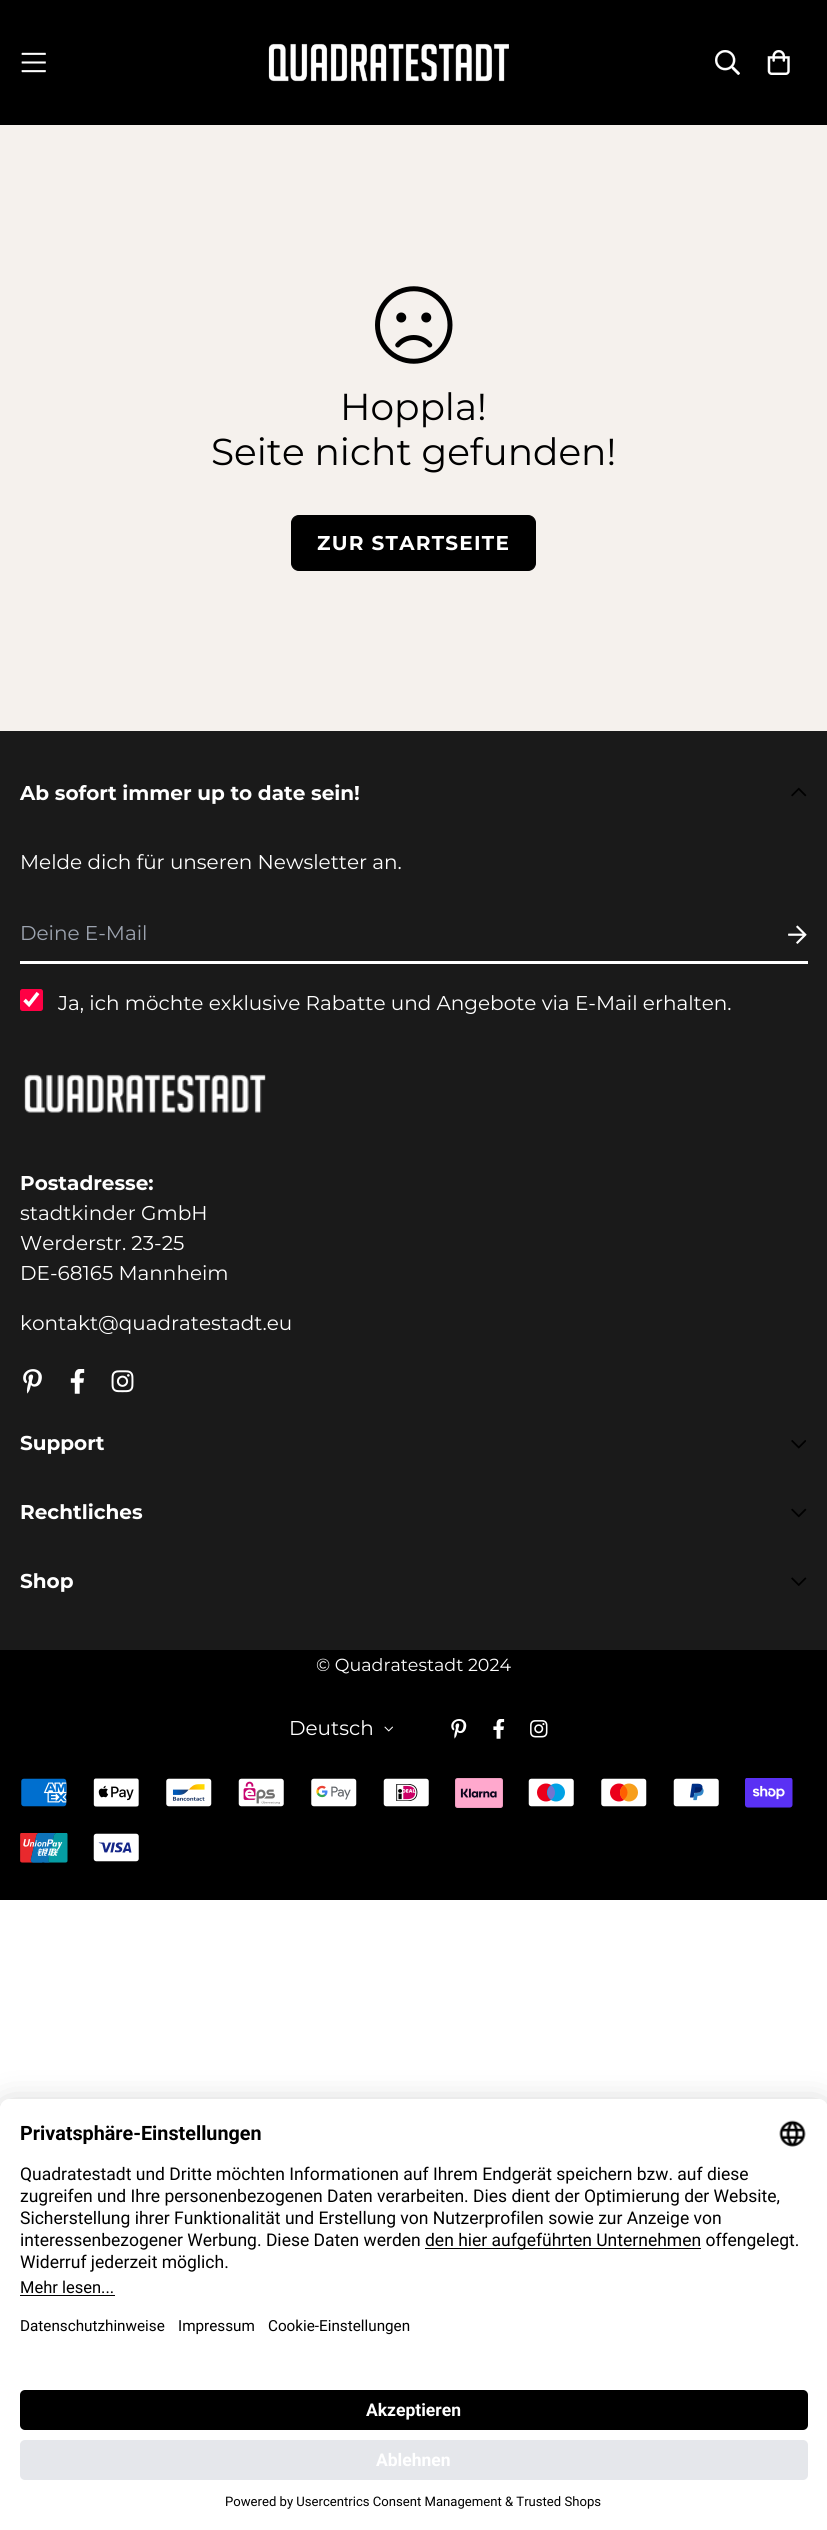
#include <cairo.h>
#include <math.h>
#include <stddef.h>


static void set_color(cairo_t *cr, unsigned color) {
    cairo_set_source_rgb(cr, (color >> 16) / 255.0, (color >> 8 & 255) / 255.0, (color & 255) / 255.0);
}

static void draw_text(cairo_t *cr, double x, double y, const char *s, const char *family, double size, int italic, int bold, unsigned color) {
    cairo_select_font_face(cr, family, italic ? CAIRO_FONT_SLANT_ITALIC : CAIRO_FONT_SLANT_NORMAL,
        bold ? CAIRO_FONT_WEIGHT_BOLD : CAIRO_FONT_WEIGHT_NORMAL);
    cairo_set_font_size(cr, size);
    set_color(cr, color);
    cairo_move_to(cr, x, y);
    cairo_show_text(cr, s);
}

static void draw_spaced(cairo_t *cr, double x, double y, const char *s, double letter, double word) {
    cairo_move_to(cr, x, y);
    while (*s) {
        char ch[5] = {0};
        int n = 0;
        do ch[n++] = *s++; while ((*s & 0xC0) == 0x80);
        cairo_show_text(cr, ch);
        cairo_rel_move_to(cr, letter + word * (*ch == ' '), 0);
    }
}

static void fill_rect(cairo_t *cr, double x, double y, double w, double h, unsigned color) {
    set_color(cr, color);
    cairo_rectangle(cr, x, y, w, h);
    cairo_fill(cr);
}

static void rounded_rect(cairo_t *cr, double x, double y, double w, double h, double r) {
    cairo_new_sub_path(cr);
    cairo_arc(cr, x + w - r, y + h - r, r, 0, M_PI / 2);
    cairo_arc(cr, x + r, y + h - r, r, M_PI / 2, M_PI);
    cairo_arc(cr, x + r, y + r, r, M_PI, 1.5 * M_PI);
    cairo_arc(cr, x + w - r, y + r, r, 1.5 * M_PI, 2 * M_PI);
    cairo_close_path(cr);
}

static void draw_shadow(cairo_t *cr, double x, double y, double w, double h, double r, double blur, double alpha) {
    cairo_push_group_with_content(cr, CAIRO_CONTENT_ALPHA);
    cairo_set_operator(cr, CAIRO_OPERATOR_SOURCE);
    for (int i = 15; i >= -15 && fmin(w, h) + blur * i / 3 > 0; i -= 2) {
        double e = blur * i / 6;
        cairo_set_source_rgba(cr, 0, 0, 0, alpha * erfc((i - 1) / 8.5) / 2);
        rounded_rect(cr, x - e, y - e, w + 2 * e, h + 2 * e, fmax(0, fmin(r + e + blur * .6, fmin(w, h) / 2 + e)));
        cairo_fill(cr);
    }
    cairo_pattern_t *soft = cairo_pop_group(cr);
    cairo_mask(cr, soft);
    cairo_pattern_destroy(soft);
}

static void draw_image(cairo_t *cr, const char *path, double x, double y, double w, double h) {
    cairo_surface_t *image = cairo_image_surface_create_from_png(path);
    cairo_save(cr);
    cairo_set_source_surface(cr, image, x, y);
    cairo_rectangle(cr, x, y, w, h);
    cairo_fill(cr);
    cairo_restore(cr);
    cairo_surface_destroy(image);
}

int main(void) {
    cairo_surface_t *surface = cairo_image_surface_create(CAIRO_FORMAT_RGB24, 827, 2530);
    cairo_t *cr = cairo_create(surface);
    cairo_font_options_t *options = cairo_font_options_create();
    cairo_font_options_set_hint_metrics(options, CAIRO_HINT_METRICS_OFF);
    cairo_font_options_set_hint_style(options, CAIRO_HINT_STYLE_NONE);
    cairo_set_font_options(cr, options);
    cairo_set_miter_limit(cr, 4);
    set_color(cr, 0xFFFFFF);
    cairo_paint(cr);
    fill_rect(cr, 0, 0, 827, 125, 0x000000);
    draw_image(cr, "assets/img1.png", 21, 52, 25, 21);
    draw_image(cr, "assets/img2.png", 268, 43, 241, 39);
    draw_image(cr, "assets/img3.png", 715, 50, 25, 25);
    draw_image(cr, "assets/img4.png", 767, 50, 23, 25);
    fill_rect(cr, 0, 125, 827, 606, 0xF5F1ED);
    draw_image(cr, "assets/img5.png", 375, 286, 78, 78);
    draw_text(cr, 340, 420, "Hoppla!", "Montserrat", 37.5, 0, 0, 0x000000);
    draw_text(cr, 211, 465, "Seite nicht gefunden!", "Montserrat", 37.5, 0, 0, 0x000000);
    rounded_rect(cr, 291.5, 515.5, 244, 55, 7.5);
    cairo_fill_preserve(cr);
    cairo_set_line_width(cr, 1);
    cairo_stroke(cr);
    cairo_select_font_face(cr, "Montserrat", CAIRO_FONT_SLANT_NORMAL, CAIRO_FONT_WEIGHT_BOLD);
    cairo_set_font_size(cr, 20);
    set_color(cr, 0xFFFFFF);
    draw_spaced(cr, 317, 550, "ZUR STARTSEITE", 1.25, 0);
    fill_rect(cr, 0, 731, 827, 919, 0x1A1A1A);
    draw_text(cr, 20, 800, "Ab sofort immer up to date sein!", "Montserrat", 20, 0, 1, 0xFFFFFF);
    draw_image(cr, "assets/img6.png", 791, 787, 16, 10);
    draw_text(cr, 20, 869, "Melde dich für unseren Newsletter an.", "Montserrat", 20, 0, 0, 0xFFFFFF);
    fill_rect(cr, 20, 961, 788, 3, 0xFFFFFF);
    draw_text(cr, 20, 940, "Deine E-Mail", "Montserrat", 20, 0, 0, 0x9CA3AF);
    draw_image(cr, "assets/img7.png", 788, 925, 19, 19);
    set_color(cr, 0xFF0044);
    rounded_rect(cr, 20, 989, 23, 22, 2.5);
    cairo_fill(cr);
    cairo_new_path(cr);
    cairo_move_to(cr, 24.5, 1000);
    cairo_line_to(cr, 29, 1004.5);
    cairo_line_to(cr, 38, 993);
    set_color(cr, 0xFFFFFF);
    cairo_set_line_width(cr, 3.6);
    cairo_stroke(cr);
    draw_text(cr, 58, 1010, "Ja, ich möchte exklusive Rabatte und Angebote via E-Mail erhalten.", "Montserrat", 20, 0, 0, 0xFFFFFF);
    draw_image(cr, "assets/img8.png", 24, 1074, 242, 39);
    draw_text(cr, 20, 1190, "Postadresse:", "Montserrat", 20, 0, 1, 0xFFFFFF);
    draw_text(cr, 20, 1220, "stadtkinder GmbH", "Montserrat", 20, 0, 0, 0xFFFFFF);
    draw_text(cr, 20, 1250, "Werderstr. 23-25", "Montserrat", 20, 0, 0, 0xFFFFFF);
    draw_text(cr, 20, 1280, "DE-68165 Mannheim", "Montserrat", 20, 0, 0, 0xFFFFFF);
    draw_text(cr, 20, 1330, "kontakt@quadratestadt.eu", "Montserrat", 20, 0, 0, 0xFFFFFF);
    draw_image(cr, "assets/img9.png", 23, 1369, 19, 25);
    draw_image(cr, "assets/img10.png", 70, 1369, 15, 25);
    draw_image(cr, "assets/img11.png", 111, 1370, 23, 23);
    draw_text(cr, 20, 1450, "Support", "Montserrat", 20, 0, 1, 0xFFFFFF);
    draw_image(cr, "assets/img12.png", 791, 1440, 15, 9);
    draw_text(cr, 20, 1519, "Rechtliches", "Montserrat", 20, 0, 1, 0xFFFFFF);
    draw_image(cr, "assets/img13.png", 791, 1508, 16, 10);
    draw_text(cr, 20, 1588, "Shop", "Montserrat", 20, 0, 1, 0xFFFFFF);
    draw_image(cr, "assets/img14.png", 791, 1577, 16, 9);
    fill_rect(cr, 0, 1650, 827, 250, 0x000000);
    draw_text(cr, 316, 1671, "© Quadratestadt 2024", "Montserrat", 17.5, 0, 0, 0xFFFFFF);
    draw_text(cr, 289, 1735, "Deutsch", "Montserrat", 20, 0, 0, 0xFFFFFF);
    draw_image(cr, "assets/img15.png", 384, 1726, 9, 6);
    draw_image(cr, "assets/img16.png", 451, 1719, 16, 20);
    draw_image(cr, "assets/img17.png", 493, 1719, 12, 20);
    draw_image(cr, "assets/img18.png", 530, 1720, 18, 18);
    draw_image(cr, "assets/img19.png", 21, 1778, 46, 29);
    draw_image(cr, "assets/img20.png", 93, 1778, 46, 29);
    draw_image(cr, "assets/img21.png", 166, 1778, 46, 29);
    draw_image(cr, "assets/img22.png", 238, 1778, 46, 29);
    draw_image(cr, "assets/img23.png", 311, 1778, 46, 29);
    draw_image(cr, "assets/img24.png", 383, 1778, 46, 29);
    draw_image(cr, "assets/img25.png", 455, 1778, 48, 30);
    draw_image(cr, "assets/img26.png", 528, 1778, 46, 29);
    draw_image(cr, "assets/img27.png", 601, 1778, 46, 29);
    draw_image(cr, "assets/img28.png", 673, 1778, 46, 29);
    draw_image(cr, "assets/img29.png", 745, 1778, 48, 30);
    draw_image(cr, "assets/img30.png", 20, 1833, 48, 30);
    draw_image(cr, "assets/img31.png", 93, 1833, 46, 29);
    set_color(cr, 0x000000);
    draw_shadow(cr, 0, 2105, 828, 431, 10, 16, 0.22);
    set_color(cr, 0xFFFFFF);
    cairo_new_path(cr);
    cairo_move_to(cr, 10, 2099);
    cairo_line_to(cr, 818, 2099);
    cairo_curve_to(cr, 823.5, 2099, 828, 2103.5, 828, 2109);
    cairo_line_to(cr, 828, 2530);
    cairo_line_to(cr, 0, 2530);
    cairo_line_to(cr, 0, 2109);
    cairo_curve_to(cr, 0, 2103.5, 4.5, 2099, 10, 2099);
    cairo_close_path(cr);
    cairo_fill(cr);
    cairo_new_path(cr);
    cairo_move_to(cr, 10, 2099);
    cairo_line_to(cr, 818, 2099);
    cairo_curve_to(cr, 823.5, 2099, 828, 2103.5, 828, 2109);
    cairo_line_to(cr, 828, 2375);
    cairo_line_to(cr, 0, 2375);
    cairo_line_to(cr, 0, 2109);
    cairo_curve_to(cr, 0, 2103.5, 4.5, 2099, 10, 2099);
    cairo_close_path(cr);
    cairo_fill(cr);
    draw_text(cr, 20, 2140, "Privatsphäre-Einstellungen", "Roboto", 19.75, 0, 1, 0x000000);
    draw_image(cr, "assets/img32.png", 779, 2120, 27, 27);
    draw_text(cr, 20, 2180, "Quadratestadt und Dritte möchten Informationen auf Ihrem Endgerät speichern bzw. auf diese", "Roboto", 17.5, 0, 0, 0x000000);
    draw_text(cr, 20, 2202, "zugreifen und Ihre personenbezogenen Daten verarbeiten. Dies dient der Optimierung der Website,", "Roboto", 17.5, 0, 0, 0x000000);
    draw_text(cr, 20, 2224, "Sicherstellung ihrer Funktionalität und Erstellung von Nutzerprofilen sowie zur Anzeige von", "Roboto", 17.5, 0, 0, 0x000000);
    draw_text(cr, 20, 2246, "interessenbezogener Werbung. Diese Daten werden", "Roboto", 17.5, 0, 0, 0x000000);
    fill_rect(cr, 425, 2248, 276, 1, 0x000000);
    draw_text(cr, 425, 2246, "den hier aufgeführten Unternehmen offengelegt.", "Roboto", 17.5, 0, 0, 0x000000);
    draw_text(cr, 20, 2268, "Widerruf jederzeit möglich.", "Roboto", 17.5, 0, 0, 0x000000);
    draw_text(cr, 20, 2293, "Mehr lesen...", "Roboto", 16.5, 0, 0, 0x000000);
    fill_rect(cr, 20, 2295, 95, 1, 0x000000);
    draw_text(cr, 20, 2331, "Datenschutzhinweise", "Roboto", 15.25, 0, 0, 0x000000);
    draw_text(cr, 178, 2331, "Impressum", "Roboto", 15.25, 0, 0, 0x000000);
    draw_text(cr, 268, 2331, "Cookie-Einstellungen", "Roboto", 15.25, 0, 0, 0x000000);
    rounded_rect(cr, 20, 2390, 788, 40, 5);
    cairo_fill(cr);
    draw_text(cr, 366, 2416, "Akzeptieren", "Roboto", 17.5, 0, 1, 0xFFFFFF);
    set_color(cr, 0xE5E7EB);
    rounded_rect(cr, 20, 2440, 788, 40, 5);
    cairo_fill(cr);
    draw_text(cr, 376, 2466, "Ablehnen", "Roboto", 17.5, 0, 1, 0xFFFFFF);
    draw_text(cr, 225, 2506, "Powered by Usercentrics Consent Management & Trusted Shops", "Roboto", 13.1, 0, 0, 0x000000);
    cairo_surface_write_to_png(surface, "output.png");
    cairo_font_options_destroy(options);
    cairo_destroy(cr);
    cairo_surface_destroy(surface);
    return 0;
}
